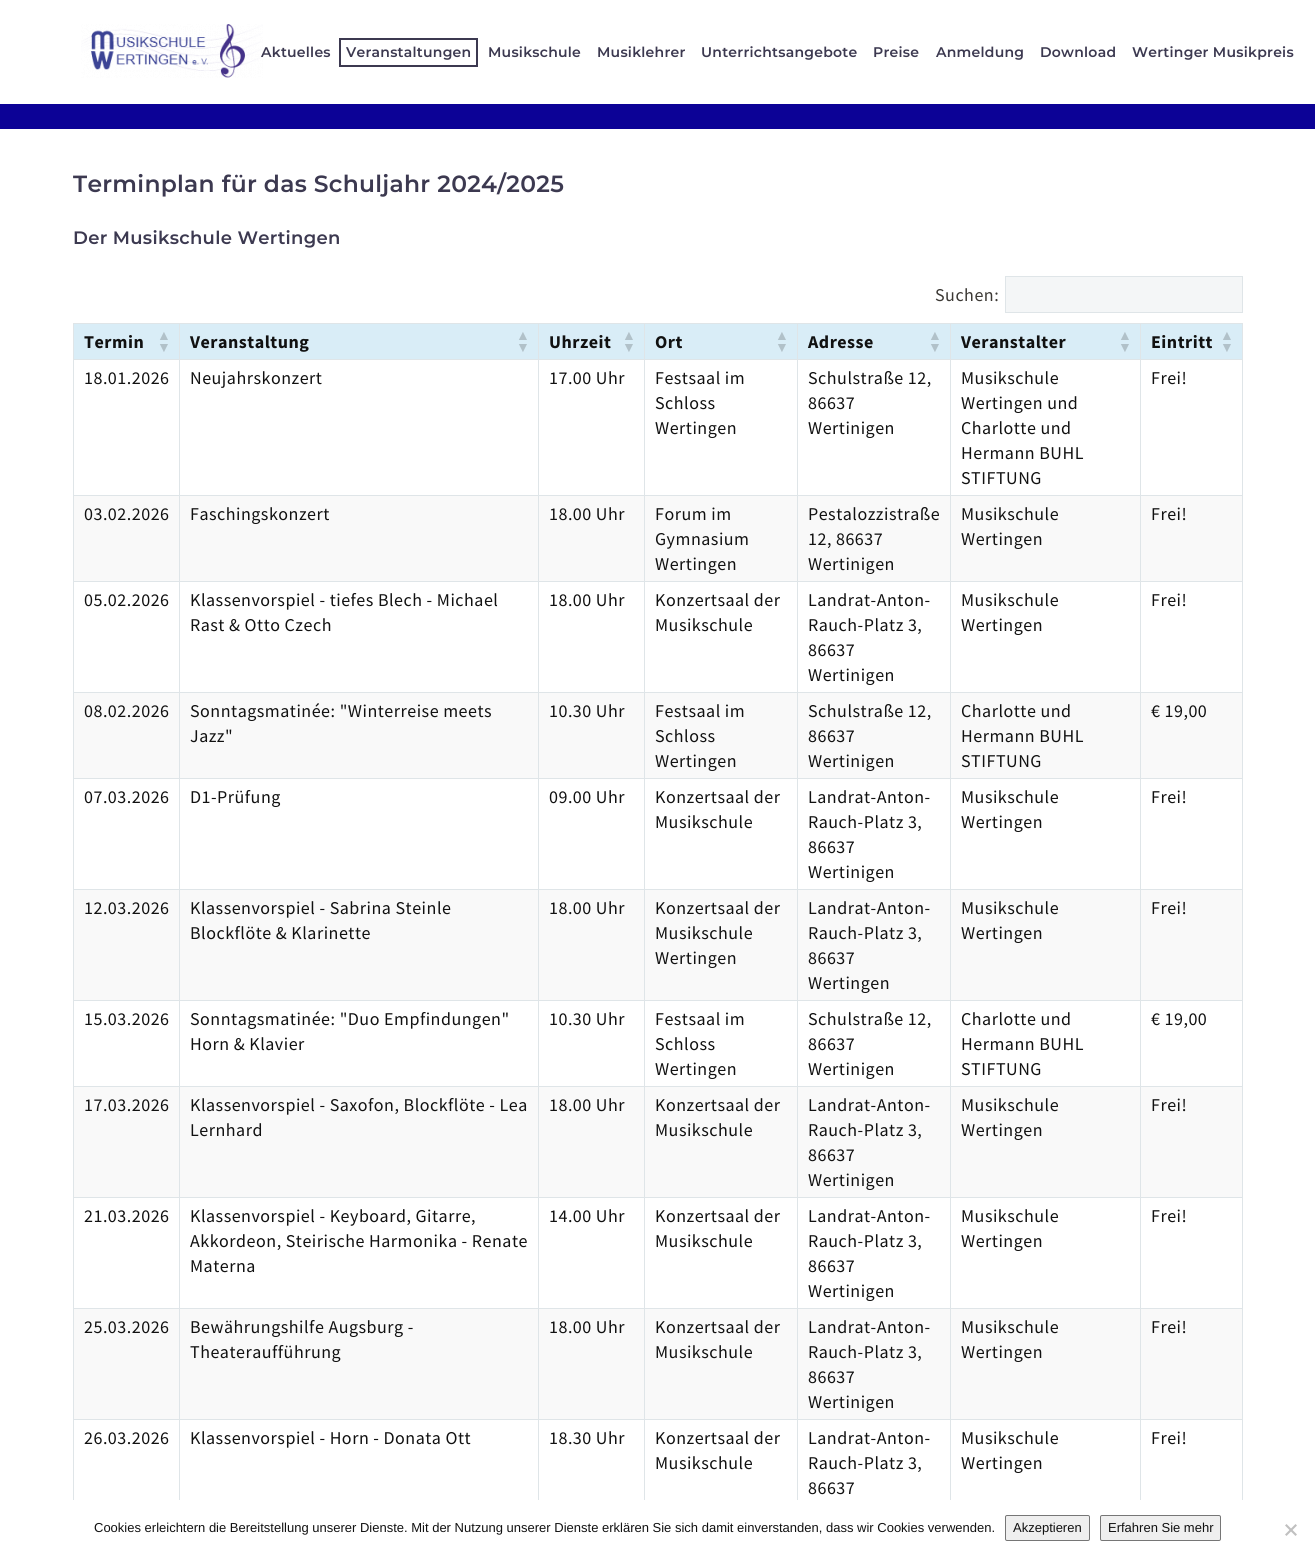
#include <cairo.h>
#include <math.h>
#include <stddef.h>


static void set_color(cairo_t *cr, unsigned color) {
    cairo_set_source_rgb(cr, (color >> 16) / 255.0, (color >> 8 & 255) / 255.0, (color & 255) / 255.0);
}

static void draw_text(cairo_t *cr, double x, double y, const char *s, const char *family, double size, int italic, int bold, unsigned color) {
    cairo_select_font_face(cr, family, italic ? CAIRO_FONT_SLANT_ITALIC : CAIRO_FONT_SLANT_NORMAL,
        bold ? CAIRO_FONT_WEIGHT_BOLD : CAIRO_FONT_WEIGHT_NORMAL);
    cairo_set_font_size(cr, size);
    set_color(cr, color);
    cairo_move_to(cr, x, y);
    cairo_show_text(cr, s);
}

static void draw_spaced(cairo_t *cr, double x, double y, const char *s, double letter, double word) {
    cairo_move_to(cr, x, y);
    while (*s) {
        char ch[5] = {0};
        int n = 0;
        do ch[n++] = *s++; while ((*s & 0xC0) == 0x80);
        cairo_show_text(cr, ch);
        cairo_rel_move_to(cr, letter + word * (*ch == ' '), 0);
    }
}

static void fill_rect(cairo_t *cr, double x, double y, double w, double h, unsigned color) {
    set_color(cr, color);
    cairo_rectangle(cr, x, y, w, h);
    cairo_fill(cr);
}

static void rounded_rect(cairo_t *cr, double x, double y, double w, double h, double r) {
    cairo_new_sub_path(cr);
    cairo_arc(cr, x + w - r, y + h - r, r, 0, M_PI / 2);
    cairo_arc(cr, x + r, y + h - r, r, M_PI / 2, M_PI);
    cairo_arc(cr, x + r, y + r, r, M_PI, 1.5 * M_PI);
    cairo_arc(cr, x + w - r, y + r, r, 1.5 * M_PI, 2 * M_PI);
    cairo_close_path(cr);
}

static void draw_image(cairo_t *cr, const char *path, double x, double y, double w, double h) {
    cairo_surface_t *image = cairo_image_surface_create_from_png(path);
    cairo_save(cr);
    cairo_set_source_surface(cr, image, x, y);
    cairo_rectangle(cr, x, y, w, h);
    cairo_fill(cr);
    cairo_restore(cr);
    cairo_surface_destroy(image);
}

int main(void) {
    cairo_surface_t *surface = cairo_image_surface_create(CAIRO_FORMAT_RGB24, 1315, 1559);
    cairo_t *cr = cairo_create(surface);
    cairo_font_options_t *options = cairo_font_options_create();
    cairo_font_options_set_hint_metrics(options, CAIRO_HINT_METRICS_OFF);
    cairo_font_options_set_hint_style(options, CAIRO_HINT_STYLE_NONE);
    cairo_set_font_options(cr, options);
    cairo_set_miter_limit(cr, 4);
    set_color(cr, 0xFFFFFF);
    cairo_paint(cr);
    draw_image(cr, "assets/img1.png", 81, 24, 182, 54);
    cairo_select_font_face(cr, "Montserrat SemiBold", CAIRO_FONT_SLANT_NORMAL, CAIRO_FONT_WEIGHT_NORMAL);
    cairo_set_font_size(cr, 14);
    set_color(cr, 0x3C3950);
    draw_spaced(cr, 261, 57, "Aktuelles", 0.25, 0);
    cairo_rectangle(cr, 340, 39, 137, 27);
    cairo_stroke(cr);
    draw_spaced(cr, 346, 57, "Veranstaltungen", 0.25, 0);
    draw_spaced(cr, 488, 57, "Musikschule", 0.25, 0);
    draw_spaced(cr, 597, 57, "Musiklehrer", 0.25, 0);
    draw_spaced(cr, 701, 57, "Unterrichtsangebote", 0.25, 0);
    draw_spaced(cr, 873, 57, "Preise", 0.25, 0);
    draw_spaced(cr, 936, 57, "Anmeldung", 0.25, 0);
    draw_spaced(cr, 1040, 57, "Download", 0.25, 0);
    draw_spaced(cr, 1132, 57, "Wertinger Musikpreis", 0.25, 0);
    fill_rect(cr, 0, 104, 1315, 25, 0x0C0296);
    cairo_set_font_size(cr, 23.4);
    set_color(cr, 0x3C3950);
    draw_spaced(cr, 73, 192, "Terminplan für das Schuljahr 2024/2025", 0.3, 0);
    cairo_set_font_size(cr, 18);
    draw_spaced(cr, 73, 244, "Der Musikschule Wertingen", 0.3, 0);
    cairo_select_font_face(cr, "Source Sans Pro", CAIRO_FONT_SLANT_NORMAL, CAIRO_FONT_WEIGHT_NORMAL);
    set_color(cr, 0x3B3834);
    draw_spaced(cr, 935, 301, "Suchen:", 0.5, 0);
    set_color(cr, 0xF4F6F7);
    cairo_rectangle(cr, 1005.5, 276.5, 237, 36);
    cairo_fill_preserve(cr);
    set_color(cr, 0xDFE5E8);
    cairo_set_line_width(cr, 1);
    cairo_stroke(cr);
    fill_rect(cr, 74, 324, 105, 35, 0xD9EDF7);
    fill_rect(cr, 1140, 323, 103, 1, 0xDFE5E8);
    fill_rect(cr, 1140, 359, 103, 1, 0xDFE5E8);
    fill_rect(cr, 1140, 495, 103, 1, 0xDFE5E8);
    fill_rect(cr, 1140, 581, 103, 1, 0xDFE5E8);
    fill_rect(cr, 1140, 692, 103, 1, 0xDFE5E8);
    fill_rect(cr, 1140, 778, 103, 1, 0xDFE5E8);
    fill_rect(cr, 1140, 889, 103, 1, 0xDFE5E8);
    fill_rect(cr, 1140, 1000, 103, 1, 0xDFE5E8);
    fill_rect(cr, 1140, 1086, 103, 1, 0xDFE5E8);
    fill_rect(cr, 1140, 1197, 103, 1, 0xDFE5E8);
    fill_rect(cr, 1140, 1308, 103, 1, 0xDFE5E8);
    fill_rect(cr, 1140, 1419, 103, 1, 0xDFE5E8);
    fill_rect(cr, 1140, 1419, 1, 81, 0xDFE5E8);
    fill_rect(cr, 950, 1419, 191, 1, 0xDFE5E8);
    fill_rect(cr, 1140, 1308, 1, 112, 0xDFE5E8);
    fill_rect(cr, 950, 1308, 191, 1, 0xDFE5E8);
    fill_rect(cr, 1140, 1197, 1, 112, 0xDFE5E8);
    fill_rect(cr, 950, 1197, 191, 1, 0xDFE5E8);
    fill_rect(cr, 1140, 1086, 1, 112, 0xDFE5E8);
    fill_rect(cr, 950, 1086, 191, 1, 0xDFE5E8);
    fill_rect(cr, 1140, 1000, 1, 87, 0xDFE5E8);
    fill_rect(cr, 950, 1000, 191, 1, 0xDFE5E8);
    fill_rect(cr, 1140, 889, 1, 112, 0xDFE5E8);
    fill_rect(cr, 950, 889, 191, 1, 0xDFE5E8);
    fill_rect(cr, 1140, 778, 1, 112, 0xDFE5E8);
    fill_rect(cr, 950, 778, 191, 1, 0xDFE5E8);
    fill_rect(cr, 1140, 692, 1, 87, 0xDFE5E8);
    fill_rect(cr, 950, 692, 191, 1, 0xDFE5E8);
    fill_rect(cr, 1140, 581, 1, 112, 0xDFE5E8);
    fill_rect(cr, 950, 581, 191, 1, 0xDFE5E8);
    fill_rect(cr, 1140, 495, 1, 87, 0xDFE5E8);
    fill_rect(cr, 950, 495, 191, 1, 0xDFE5E8);
    fill_rect(cr, 1140, 359, 1, 137, 0xDFE5E8);
    fill_rect(cr, 950, 359, 191, 1, 0xDFE5E8);
    fill_rect(cr, 1140, 323, 1, 37, 0xDFE5E8);
    fill_rect(cr, 950, 323, 191, 1, 0xDFE5E8);
    fill_rect(cr, 950, 1419, 1, 81, 0xDFE5E8);
    fill_rect(cr, 797, 1419, 154, 1, 0xDFE5E8);
    fill_rect(cr, 950, 1308, 1, 112, 0xDFE5E8);
    fill_rect(cr, 797, 1308, 154, 1, 0xDFE5E8);
    fill_rect(cr, 950, 1197, 1, 112, 0xDFE5E8);
    fill_rect(cr, 797, 1197, 154, 1, 0xDFE5E8);
    fill_rect(cr, 950, 1086, 1, 112, 0xDFE5E8);
    fill_rect(cr, 797, 1086, 154, 1, 0xDFE5E8);
    fill_rect(cr, 950, 1000, 1, 87, 0xDFE5E8);
    fill_rect(cr, 797, 1000, 154, 1, 0xDFE5E8);
    fill_rect(cr, 950, 889, 1, 112, 0xDFE5E8);
    fill_rect(cr, 797, 889, 154, 1, 0xDFE5E8);
    fill_rect(cr, 950, 778, 1, 112, 0xDFE5E8);
    fill_rect(cr, 797, 778, 154, 1, 0xDFE5E8);
    fill_rect(cr, 950, 692, 1, 87, 0xDFE5E8);
    fill_rect(cr, 797, 692, 154, 1, 0xDFE5E8);
    fill_rect(cr, 950, 581, 1, 112, 0xDFE5E8);
    fill_rect(cr, 797, 581, 154, 1, 0xDFE5E8);
    fill_rect(cr, 950, 495, 1, 87, 0xDFE5E8);
    fill_rect(cr, 797, 495, 154, 1, 0xDFE5E8);
    fill_rect(cr, 950, 359, 1, 137, 0xDFE5E8);
    fill_rect(cr, 797, 359, 154, 1, 0xDFE5E8);
    fill_rect(cr, 950, 323, 1, 37, 0xDFE5E8);
    fill_rect(cr, 797, 323, 154, 1, 0xDFE5E8);
    fill_rect(cr, 797, 1419, 1, 81, 0xDFE5E8);
    fill_rect(cr, 644, 1419, 154, 1, 0xDFE5E8);
    fill_rect(cr, 797, 1308, 1, 112, 0xDFE5E8);
    fill_rect(cr, 644, 1308, 154, 1, 0xDFE5E8);
    fill_rect(cr, 797, 1197, 1, 112, 0xDFE5E8);
    fill_rect(cr, 644, 1197, 154, 1, 0xDFE5E8);
    fill_rect(cr, 797, 1086, 1, 112, 0xDFE5E8);
    fill_rect(cr, 644, 1086, 154, 1, 0xDFE5E8);
    fill_rect(cr, 797, 1000, 1, 87, 0xDFE5E8);
    fill_rect(cr, 644, 1000, 154, 1, 0xDFE5E8);
    fill_rect(cr, 797, 889, 1, 112, 0xDFE5E8);
    fill_rect(cr, 644, 889, 154, 1, 0xDFE5E8);
    fill_rect(cr, 797, 778, 1, 112, 0xDFE5E8);
    fill_rect(cr, 644, 778, 154, 1, 0xDFE5E8);
    fill_rect(cr, 797, 692, 1, 87, 0xDFE5E8);
    fill_rect(cr, 644, 692, 154, 1, 0xDFE5E8);
    fill_rect(cr, 797, 581, 1, 112, 0xDFE5E8);
    fill_rect(cr, 644, 581, 154, 1, 0xDFE5E8);
    fill_rect(cr, 797, 495, 1, 87, 0xDFE5E8);
    fill_rect(cr, 644, 495, 154, 1, 0xDFE5E8);
    fill_rect(cr, 797, 359, 1, 137, 0xDFE5E8);
    fill_rect(cr, 644, 359, 154, 1, 0xDFE5E8);
    fill_rect(cr, 797, 323, 1, 37, 0xDFE5E8);
    fill_rect(cr, 644, 323, 154, 1, 0xDFE5E8);
    fill_rect(cr, 644, 1419, 1, 81, 0xDFE5E8);
    fill_rect(cr, 538, 1419, 107, 1, 0xDFE5E8);
    fill_rect(cr, 644, 1308, 1, 112, 0xDFE5E8);
    fill_rect(cr, 538, 1308, 107, 1, 0xDFE5E8);
    fill_rect(cr, 644, 1197, 1, 112, 0xDFE5E8);
    fill_rect(cr, 538, 1197, 107, 1, 0xDFE5E8);
    fill_rect(cr, 644, 1086, 1, 112, 0xDFE5E8);
    fill_rect(cr, 538, 1086, 107, 1, 0xDFE5E8);
    fill_rect(cr, 644, 1000, 1, 87, 0xDFE5E8);
    fill_rect(cr, 538, 1000, 107, 1, 0xDFE5E8);
    fill_rect(cr, 644, 889, 1, 112, 0xDFE5E8);
    fill_rect(cr, 538, 889, 107, 1, 0xDFE5E8);
    fill_rect(cr, 644, 778, 1, 112, 0xDFE5E8);
    fill_rect(cr, 538, 778, 107, 1, 0xDFE5E8);
    fill_rect(cr, 644, 692, 1, 87, 0xDFE5E8);
    fill_rect(cr, 538, 692, 107, 1, 0xDFE5E8);
    fill_rect(cr, 644, 581, 1, 112, 0xDFE5E8);
    fill_rect(cr, 538, 581, 107, 1, 0xDFE5E8);
    fill_rect(cr, 644, 495, 1, 87, 0xDFE5E8);
    fill_rect(cr, 538, 495, 107, 1, 0xDFE5E8);
    fill_rect(cr, 644, 359, 1, 137, 0xDFE5E8);
    fill_rect(cr, 538, 359, 107, 1, 0xDFE5E8);
    fill_rect(cr, 644, 323, 1, 37, 0xDFE5E8);
    fill_rect(cr, 538, 323, 107, 1, 0xDFE5E8);
    fill_rect(cr, 538, 1419, 1, 81, 0xDFE5E8);
    fill_rect(cr, 179, 1419, 360, 1, 0xDFE5E8);
    fill_rect(cr, 538, 1308, 1, 112, 0xDFE5E8);
    fill_rect(cr, 179, 1308, 360, 1, 0xDFE5E8);
    fill_rect(cr, 538, 1197, 1, 112, 0xDFE5E8);
    fill_rect(cr, 179, 1197, 360, 1, 0xDFE5E8);
    fill_rect(cr, 538, 1086, 1, 112, 0xDFE5E8);
    fill_rect(cr, 179, 1086, 360, 1, 0xDFE5E8);
    fill_rect(cr, 538, 1000, 1, 87, 0xDFE5E8);
    fill_rect(cr, 179, 1000, 360, 1, 0xDFE5E8);
    fill_rect(cr, 538, 889, 1, 112, 0xDFE5E8);
    fill_rect(cr, 179, 889, 360, 1, 0xDFE5E8);
    fill_rect(cr, 538, 778, 1, 112, 0xDFE5E8);
    fill_rect(cr, 179, 778, 360, 1, 0xDFE5E8);
    fill_rect(cr, 538, 692, 1, 87, 0xDFE5E8);
    fill_rect(cr, 179, 692, 360, 1, 0xDFE5E8);
    fill_rect(cr, 538, 581, 1, 112, 0xDFE5E8);
    fill_rect(cr, 179, 581, 360, 1, 0xDFE5E8);
    fill_rect(cr, 538, 495, 1, 87, 0xDFE5E8);
    fill_rect(cr, 179, 495, 360, 1, 0xDFE5E8);
    fill_rect(cr, 538, 359, 1, 137, 0xDFE5E8);
    fill_rect(cr, 179, 359, 360, 1, 0xDFE5E8);
    fill_rect(cr, 538, 323, 1, 37, 0xDFE5E8);
    fill_rect(cr, 179, 323, 360, 1, 0xDFE5E8);
    fill_rect(cr, 179, 1419, 1, 81, 0xDFE5E8);
    fill_rect(cr, 73, 1419, 107, 1, 0xDFE5E8);
    fill_rect(cr, 179, 1308, 1, 112, 0xDFE5E8);
    fill_rect(cr, 73, 1308, 107, 1, 0xDFE5E8);
    fill_rect(cr, 179, 1197, 1, 112, 0xDFE5E8);
    fill_rect(cr, 73, 1197, 107, 1, 0xDFE5E8);
    fill_rect(cr, 179, 1086, 1, 112, 0xDFE5E8);
    fill_rect(cr, 73, 1086, 107, 1, 0xDFE5E8);
    fill_rect(cr, 179, 1000, 1, 87, 0xDFE5E8);
    fill_rect(cr, 73, 1000, 107, 1, 0xDFE5E8);
    fill_rect(cr, 179, 889, 1, 112, 0xDFE5E8);
    fill_rect(cr, 73, 889, 107, 1, 0xDFE5E8);
    fill_rect(cr, 179, 778, 1, 112, 0xDFE5E8);
    fill_rect(cr, 73, 778, 107, 1, 0xDFE5E8);
    fill_rect(cr, 179, 692, 1, 87, 0xDFE5E8);
    fill_rect(cr, 73, 692, 107, 1, 0xDFE5E8);
    fill_rect(cr, 179, 581, 1, 112, 0xDFE5E8);
    fill_rect(cr, 73, 581, 107, 1, 0xDFE5E8);
    fill_rect(cr, 179, 495, 1, 87, 0xDFE5E8);
    fill_rect(cr, 73, 495, 107, 1, 0xDFE5E8);
    fill_rect(cr, 179, 359, 1, 137, 0xDFE5E8);
    fill_rect(cr, 73, 359, 107, 1, 0xDFE5E8);
    fill_rect(cr, 179, 323, 1, 37, 0xDFE5E8);
    fill_rect(cr, 73, 323, 107, 1, 0xDFE5E8);
    fill_rect(cr, 73, 1419, 1, 81, 0xDFE5E8);
    fill_rect(cr, 73, 1308, 1, 112, 0xDFE5E8);
    fill_rect(cr, 73, 1197, 1, 112, 0xDFE5E8);
    fill_rect(cr, 73, 1086, 1, 112, 0xDFE5E8);
    fill_rect(cr, 73, 1000, 1, 87, 0xDFE5E8);
    fill_rect(cr, 73, 889, 1, 112, 0xDFE5E8);
    fill_rect(cr, 73, 778, 1, 112, 0xDFE5E8);
    fill_rect(cr, 73, 692, 1, 87, 0xDFE5E8);
    fill_rect(cr, 73, 581, 1, 112, 0xDFE5E8);
    fill_rect(cr, 73, 495, 1, 87, 0xDFE5E8);
    fill_rect(cr, 73, 359, 1, 137, 0xDFE5E8);
    fill_rect(cr, 73, 323, 1, 37, 0xDFE5E8);
    cairo_select_font_face(cr, "Source Sans Pro", CAIRO_FONT_SLANT_NORMAL, CAIRO_FONT_WEIGHT_BOLD);
    set_color(cr, 0x111111);
    draw_spaced(cr, 84, 348, "Termin", 0.5, 0);
    cairo_select_font_face(cr, "Liberation Sans", CAIRO_FONT_SLANT_NORMAL, CAIRO_FONT_WEIGHT_BOLD);
    cairo_set_font_size(cr, 14);
    set_color(cr, 0xB1C1C9);
    draw_spaced(cr, 157, 340, "▲", 0.5, 0);
    draw_spaced(cr, 157, 352, "▼", 0.5, 0);
    fill_rect(cr, 180, 324, 358, 35, 0xD9EDF7);
    cairo_select_font_face(cr, "Source Sans Pro", CAIRO_FONT_SLANT_NORMAL, CAIRO_FONT_WEIGHT_BOLD);
    cairo_set_font_size(cr, 18);
    set_color(cr, 0x111111);
    draw_spaced(cr, 190, 348, "Veranstaltung", 0.5, 0);
    cairo_select_font_face(cr, "Liberation Sans", CAIRO_FONT_SLANT_NORMAL, CAIRO_FONT_WEIGHT_BOLD);
    cairo_set_font_size(cr, 14);
    set_color(cr, 0xB1C1C9);
    draw_spaced(cr, 516, 340, "▲", 0.5, 0);
    draw_spaced(cr, 516, 352, "▼", 0.5, 0);
    fill_rect(cr, 539, 324, 105, 35, 0xD9EDF7);
    cairo_select_font_face(cr, "Source Sans Pro", CAIRO_FONT_SLANT_NORMAL, CAIRO_FONT_WEIGHT_BOLD);
    cairo_set_font_size(cr, 18);
    set_color(cr, 0x111111);
    draw_spaced(cr, 549, 348, "Uhrzeit", 0.5, 0);
    cairo_select_font_face(cr, "Liberation Sans", CAIRO_FONT_SLANT_NORMAL, CAIRO_FONT_WEIGHT_BOLD);
    cairo_set_font_size(cr, 14);
    set_color(cr, 0xB1C1C9);
    draw_spaced(cr, 622, 340, "▲", 0.5, 0);
    draw_spaced(cr, 622, 352, "▼", 0.5, 0);
    fill_rect(cr, 645, 324, 152, 35, 0xD9EDF7);
    cairo_select_font_face(cr, "Source Sans Pro", CAIRO_FONT_SLANT_NORMAL, CAIRO_FONT_WEIGHT_BOLD);
    cairo_set_font_size(cr, 18);
    set_color(cr, 0x111111);
    draw_spaced(cr, 655, 348, "Ort", 0.5, 0);
    cairo_select_font_face(cr, "Liberation Sans", CAIRO_FONT_SLANT_NORMAL, CAIRO_FONT_WEIGHT_BOLD);
    cairo_set_font_size(cr, 14);
    set_color(cr, 0xB1C1C9);
    draw_spaced(cr, 775, 340, "▲", 0.5, 0);
    draw_spaced(cr, 775, 352, "▼", 0.5, 0);
    fill_rect(cr, 798, 324, 152, 35, 0xD9EDF7);
    cairo_select_font_face(cr, "Source Sans Pro", CAIRO_FONT_SLANT_NORMAL, CAIRO_FONT_WEIGHT_BOLD);
    cairo_set_font_size(cr, 18);
    set_color(cr, 0x111111);
    draw_spaced(cr, 808, 348, "Adresse", 0.5, 0);
    cairo_select_font_face(cr, "Liberation Sans", CAIRO_FONT_SLANT_NORMAL, CAIRO_FONT_WEIGHT_BOLD);
    cairo_set_font_size(cr, 14);
    set_color(cr, 0xB1C1C9);
    draw_spaced(cr, 928, 340, "▲", 0.5, 0);
    draw_spaced(cr, 928, 352, "▼", 0.5, 0);
    fill_rect(cr, 951, 324, 189, 35, 0xD9EDF7);
    cairo_select_font_face(cr, "Source Sans Pro", CAIRO_FONT_SLANT_NORMAL, CAIRO_FONT_WEIGHT_BOLD);
    cairo_set_font_size(cr, 18);
    set_color(cr, 0x111111);
    draw_spaced(cr, 961, 348, "Veranstalter", 0.5, 0);
    cairo_select_font_face(cr, "Liberation Sans", CAIRO_FONT_SLANT_NORMAL, CAIRO_FONT_WEIGHT_BOLD);
    cairo_set_font_size(cr, 14);
    set_color(cr, 0xB1C1C9);
    draw_spaced(cr, 1118, 340, "▲", 0.5, 0);
    draw_spaced(cr, 1118, 352, "▼", 0.5, 0);
    fill_rect(cr, 1141, 324, 101, 35, 0xD9EDF7);
    fill_rect(cr, 1242, 1419, 1, 81, 0xDFE5E8);
    fill_rect(cr, 1242, 1308, 1, 112, 0xDFE5E8);
    fill_rect(cr, 1242, 1197, 1, 112, 0xDFE5E8);
    fill_rect(cr, 1242, 1086, 1, 112, 0xDFE5E8);
    fill_rect(cr, 1242, 1000, 1, 87, 0xDFE5E8);
    fill_rect(cr, 1242, 889, 1, 112, 0xDFE5E8);
    fill_rect(cr, 1242, 778, 1, 112, 0xDFE5E8);
    fill_rect(cr, 1242, 692, 1, 87, 0xDFE5E8);
    fill_rect(cr, 1242, 581, 1, 112, 0xDFE5E8);
    fill_rect(cr, 1242, 495, 1, 87, 0xDFE5E8);
    fill_rect(cr, 1242, 359, 1, 137, 0xDFE5E8);
    fill_rect(cr, 1242, 323, 1, 37, 0xDFE5E8);
    cairo_select_font_face(cr, "Source Sans Pro", CAIRO_FONT_SLANT_NORMAL, CAIRO_FONT_WEIGHT_BOLD);
    cairo_set_font_size(cr, 18);
    set_color(cr, 0x111111);
    draw_spaced(cr, 1151, 348, "Eintritt", 0.5, 0);
    cairo_select_font_face(cr, "Liberation Sans", CAIRO_FONT_SLANT_NORMAL, CAIRO_FONT_WEIGHT_BOLD);
    cairo_set_font_size(cr, 14);
    set_color(cr, 0xB1C1C9);
    draw_spaced(cr, 1220, 340, "▲", 0.5, 0);
    draw_spaced(cr, 1220, 352, "▼", 0.5, 0);
    cairo_select_font_face(cr, "Source Sans Pro", CAIRO_FONT_SLANT_NORMAL, CAIRO_FONT_WEIGHT_NORMAL);
    cairo_set_font_size(cr, 18);
    set_color(cr, 0x111111);
    draw_spaced(cr, 84, 384, "18.01.2026", 0.5, 0);
    draw_spaced(cr, 190, 384, "Neujahrskonzert", 0.5, 0);
    draw_spaced(cr, 549, 384, "17.00 Uhr", 0.5, 0);
    draw_spaced(cr, 655, 384, "Festsaal im", 0.5, 0);
    draw_spaced(cr, 655, 409, "Schloss", 0.5, 0);
    draw_spaced(cr, 655, 434, "Wertingen", 0.5, 0);
    draw_spaced(cr, 808, 384, "Schulstraße 12,", 0.5, 0);
    draw_spaced(cr, 808, 409, "86637", 0.5, 0);
    draw_spaced(cr, 808, 434, "Wertinigen", 0.5, 0);
    draw_spaced(cr, 961, 384, "Musikschule", 0.5, 0);
    draw_spaced(cr, 961, 409, "Wertingen und", 0.5, 0);
    draw_spaced(cr, 961, 434, "Charlotte und", 0.5, 0);
    draw_spaced(cr, 961, 459, "Hermann BUHL", 0.5, 0);
    draw_spaced(cr, 961, 484, "STIFTUNG", 0.5, 0);
    draw_spaced(cr, 1151, 384, "Frei!", 0.5, 0);
    fill_rect(cr, 74, 496, 105, 85, 0xF9F9F9);
    set_color(cr, 0x111111);
    draw_spaced(cr, 84, 520, "03.02.2026", 0.5, 0);
    fill_rect(cr, 180, 496, 358, 85, 0xF9F9F9);
    set_color(cr, 0x111111);
    draw_spaced(cr, 190, 520, "Faschingskonzert", 0.5, 0);
    fill_rect(cr, 539, 496, 105, 85, 0xF9F9F9);
    set_color(cr, 0x111111);
    draw_spaced(cr, 549, 520, "18.00 Uhr", 0.5, 0);
    fill_rect(cr, 645, 496, 152, 85, 0xF9F9F9);
    set_color(cr, 0x111111);
    draw_spaced(cr, 655, 520, "Forum im", 0.5, 0);
    draw_spaced(cr, 655, 545, "Gymnasium", 0.5, 0);
    draw_spaced(cr, 655, 570, "Wertingen", 0.5, 0);
    fill_rect(cr, 798, 496, 152, 85, 0xF9F9F9);
    set_color(cr, 0x111111);
    draw_spaced(cr, 808, 520, "Pestalozzistraße", 0.5, 0);
    draw_spaced(cr, 808, 545, "12, 86637", 0.5, 0);
    draw_spaced(cr, 808, 570, "Wertinigen", 0.5, 0);
    fill_rect(cr, 951, 496, 189, 85, 0xF9F9F9);
    set_color(cr, 0x111111);
    draw_spaced(cr, 961, 520, "Musikschule", 0.5, 0);
    draw_spaced(cr, 961, 545, "Wertingen", 0.5, 0);
    fill_rect(cr, 1141, 496, 101, 85, 0xF9F9F9);
    set_color(cr, 0x111111);
    draw_spaced(cr, 1151, 520, "Frei!", 0.5, 0);
    draw_spaced(cr, 84, 606, "05.02.2026", 0.5, 0);
    draw_spaced(cr, 190, 606, "Klassenvorspiel - tiefes Blech - Michael", 0.5, 0);
    draw_spaced(cr, 190, 631, "Rast & Otto Czech", 0.5, 0);
    draw_spaced(cr, 549, 606, "18.00 Uhr", 0.5, 0);
    draw_spaced(cr, 655, 606, "Konzertsaal der", 0.5, 0);
    draw_spaced(cr, 655, 631, "Musikschule", 0.5, 0);
    draw_spaced(cr, 808, 606, "Landrat-Anton-", 0.5, 0);
    draw_spaced(cr, 808, 631, "Rauch-Platz 3,", 0.5, 0);
    draw_spaced(cr, 808, 656, "86637", 0.5, 0);
    draw_spaced(cr, 808, 681, "Wertinigen", 0.5, 0);
    draw_spaced(cr, 961, 606, "Musikschule", 0.5, 0);
    draw_spaced(cr, 961, 631, "Wertingen", 0.5, 0);
    draw_spaced(cr, 1151, 606, "Frei!", 0.5, 0);
    fill_rect(cr, 74, 693, 105, 85, 0xF9F9F9);
    set_color(cr, 0x111111);
    draw_spaced(cr, 84, 717, "08.02.2026", 0.5, 0);
    fill_rect(cr, 180, 693, 358, 85, 0xF9F9F9);
    set_color(cr, 0x111111);
    draw_spaced(cr, 190, 717, "Sonntagsmatinée: \"Winterreise meets", 0.5, 0);
    draw_spaced(cr, 190, 742, "Jazz\"", 0.5, 0);
    fill_rect(cr, 539, 693, 105, 85, 0xF9F9F9);
    set_color(cr, 0x111111);
    draw_spaced(cr, 549, 717, "10.30 Uhr", 0.5, 0);
    fill_rect(cr, 645, 693, 152, 85, 0xF9F9F9);
    set_color(cr, 0x111111);
    draw_spaced(cr, 655, 717, "Festsaal im", 0.5, 0);
    draw_spaced(cr, 655, 742, "Schloss", 0.5, 0);
    draw_spaced(cr, 655, 767, "Wertingen", 0.5, 0);
    fill_rect(cr, 798, 693, 152, 85, 0xF9F9F9);
    set_color(cr, 0x111111);
    draw_spaced(cr, 808, 717, "Schulstraße 12,", 0.5, 0);
    draw_spaced(cr, 808, 742, "86637", 0.5, 0);
    draw_spaced(cr, 808, 767, "Wertinigen", 0.5, 0);
    fill_rect(cr, 951, 693, 189, 85, 0xF9F9F9);
    set_color(cr, 0x111111);
    draw_spaced(cr, 961, 717, "Charlotte und", 0.5, 0);
    draw_spaced(cr, 961, 742, "Hermann BUHL", 0.5, 0);
    draw_spaced(cr, 961, 767, "STIFTUNG", 0.5, 0);
    fill_rect(cr, 1141, 693, 101, 85, 0xF9F9F9);
    set_color(cr, 0x111111);
    draw_spaced(cr, 1151, 717, "€ 19,00", 0.5, 0);
    draw_spaced(cr, 84, 803, "07.03.2026", 0.5, 0);
    draw_spaced(cr, 190, 803, "D1-Prüfung", 0.5, 0);
    draw_spaced(cr, 549, 803, "09.00 Uhr", 0.5, 0);
    draw_spaced(cr, 655, 803, "Konzertsaal der", 0.5, 0);
    draw_spaced(cr, 655, 828, "Musikschule", 0.5, 0);
    draw_spaced(cr, 808, 803, "Landrat-Anton-", 0.5, 0);
    draw_spaced(cr, 808, 828, "Rauch-Platz 3,", 0.5, 0);
    draw_spaced(cr, 808, 853, "86637", 0.5, 0);
    draw_spaced(cr, 808, 878, "Wertinigen", 0.5, 0);
    draw_spaced(cr, 961, 803, "Musikschule", 0.5, 0);
    draw_spaced(cr, 961, 828, "Wertingen", 0.5, 0);
    draw_spaced(cr, 1151, 803, "Frei!", 0.5, 0);
    fill_rect(cr, 74, 890, 105, 110, 0xF9F9F9);
    set_color(cr, 0x111111);
    draw_spaced(cr, 84, 914, "12.03.2026", 0.5, 0);
    fill_rect(cr, 180, 890, 358, 110, 0xF9F9F9);
    set_color(cr, 0x111111);
    draw_spaced(cr, 190, 914, "Klassenvorspiel - Sabrina Steinle", 0.5, 0);
    draw_spaced(cr, 190, 939, "Blockflöte & Klarinette", 0.5, 0);
    fill_rect(cr, 539, 890, 105, 110, 0xF9F9F9);
    set_color(cr, 0x111111);
    draw_spaced(cr, 549, 914, "18.00 Uhr", 0.5, 0);
    fill_rect(cr, 645, 890, 152, 110, 0xF9F9F9);
    set_color(cr, 0x111111);
    draw_spaced(cr, 655, 914, "Konzertsaal der", 0.5, 0);
    draw_spaced(cr, 655, 939, "Musikschule", 0.5, 0);
    draw_spaced(cr, 655, 964, "Wertingen", 0.5, 0);
    fill_rect(cr, 798, 890, 152, 110, 0xF9F9F9);
    set_color(cr, 0x111111);
    draw_spaced(cr, 808, 914, "Landrat-Anton-", 0.5, 0);
    draw_spaced(cr, 808, 939, "Rauch-Platz 3,", 0.5, 0);
    draw_spaced(cr, 808, 964, "86637", 0.5, 0);
    draw_spaced(cr, 808, 989, "Wertingen", 0.5, 0);
    fill_rect(cr, 951, 890, 189, 110, 0xF9F9F9);
    set_color(cr, 0x111111);
    draw_spaced(cr, 961, 914, "Musikschule", 0.5, 0);
    draw_spaced(cr, 961, 939, "Wertingen", 0.5, 0);
    fill_rect(cr, 1141, 890, 101, 110, 0xF9F9F9);
    set_color(cr, 0x111111);
    draw_spaced(cr, 1151, 914, "Frei!", 0.5, 0);
    draw_spaced(cr, 84, 1025, "15.03.2026", 0.5, 0);
    draw_spaced(cr, 190, 1025, "Sonntagsmatinée: \"Duo Empfindungen\"", 0.5, 0);
    draw_spaced(cr, 190, 1050, "Horn & Klavier", 0.5, 0);
    draw_spaced(cr, 549, 1025, "10.30 Uhr", 0.5, 0);
    draw_spaced(cr, 655, 1025, "Festsaal im", 0.5, 0);
    draw_spaced(cr, 655, 1050, "Schloss", 0.5, 0);
    draw_spaced(cr, 655, 1075, "Wertingen", 0.5, 0);
    draw_spaced(cr, 808, 1025, "Schulstraße 12,", 0.5, 0);
    draw_spaced(cr, 808, 1050, "86637", 0.5, 0);
    draw_spaced(cr, 808, 1075, "Wertinigen", 0.5, 0);
    draw_spaced(cr, 961, 1025, "Charlotte und", 0.5, 0);
    draw_spaced(cr, 961, 1050, "Hermann BUHL", 0.5, 0);
    draw_spaced(cr, 961, 1075, "STIFTUNG", 0.5, 0);
    draw_spaced(cr, 1151, 1025, "€ 19,00", 0.5, 0);
    fill_rect(cr, 74, 1087, 105, 110, 0xF9F9F9);
    set_color(cr, 0x111111);
    draw_spaced(cr, 84, 1111, "17.03.2026", 0.5, 0);
    fill_rect(cr, 180, 1087, 358, 110, 0xF9F9F9);
    set_color(cr, 0x111111);
    draw_spaced(cr, 190, 1111, "Klassenvorspiel - Saxofon, Blockflöte - Lea", 0.5, 0);
    draw_spaced(cr, 190, 1136, "Lernhard", 0.5, 0);
    fill_rect(cr, 539, 1087, 105, 110, 0xF9F9F9);
    set_color(cr, 0x111111);
    draw_spaced(cr, 549, 1111, "18.00 Uhr", 0.5, 0);
    fill_rect(cr, 645, 1087, 152, 110, 0xF9F9F9);
    set_color(cr, 0x111111);
    draw_spaced(cr, 655, 1111, "Konzertsaal der", 0.5, 0);
    draw_spaced(cr, 655, 1136, "Musikschule", 0.5, 0);
    fill_rect(cr, 798, 1087, 152, 110, 0xF9F9F9);
    set_color(cr, 0x111111);
    draw_spaced(cr, 808, 1111, "Landrat-Anton-", 0.5, 0);
    draw_spaced(cr, 808, 1136, "Rauch-Platz 3,", 0.5, 0);
    draw_spaced(cr, 808, 1161, "86637", 0.5, 0);
    draw_spaced(cr, 808, 1186, "Wertinigen", 0.5, 0);
    fill_rect(cr, 951, 1087, 189, 110, 0xF9F9F9);
    set_color(cr, 0x111111);
    draw_spaced(cr, 961, 1111, "Musikschule", 0.5, 0);
    draw_spaced(cr, 961, 1136, "Wertingen", 0.5, 0);
    fill_rect(cr, 1141, 1087, 101, 110, 0xF9F9F9);
    set_color(cr, 0x111111);
    draw_spaced(cr, 1151, 1111, "Frei!", 0.5, 0);
    draw_spaced(cr, 84, 1222, "21.03.2026", 0.5, 0);
    draw_spaced(cr, 190, 1222, "Klassenvorspiel - Keyboard, Gitarre,", 0.5, 0);
    draw_spaced(cr, 190, 1247, "Akkordeon, Steirische Harmonika - Renate", 0.5, 0);
    draw_spaced(cr, 190, 1272, "Materna", 0.5, 0);
    draw_spaced(cr, 549, 1222, "14.00 Uhr", 0.5, 0);
    draw_spaced(cr, 655, 1222, "Konzertsaal der", 0.5, 0);
    draw_spaced(cr, 655, 1247, "Musikschule", 0.5, 0);
    draw_spaced(cr, 808, 1222, "Landrat-Anton-", 0.5, 0);
    draw_spaced(cr, 808, 1247, "Rauch-Platz 3,", 0.5, 0);
    draw_spaced(cr, 808, 1272, "86637", 0.5, 0);
    draw_spaced(cr, 808, 1297, "Wertinigen", 0.5, 0);
    draw_spaced(cr, 961, 1222, "Musikschule", 0.5, 0);
    draw_spaced(cr, 961, 1247, "Wertingen", 0.5, 0);
    draw_spaced(cr, 1151, 1222, "Frei!", 0.5, 0);
    fill_rect(cr, 74, 1309, 105, 110, 0xF9F9F9);
    set_color(cr, 0x111111);
    draw_spaced(cr, 84, 1333, "25.03.2026", 0.5, 0);
    fill_rect(cr, 180, 1309, 358, 110, 0xF9F9F9);
    set_color(cr, 0x111111);
    draw_spaced(cr, 190, 1333, "Bewährungshilfe Augsburg -", 0.5, 0);
    draw_spaced(cr, 190, 1358, "Theateraufführung", 0.5, 0);
    fill_rect(cr, 539, 1309, 105, 110, 0xF9F9F9);
    set_color(cr, 0x111111);
    draw_spaced(cr, 549, 1333, "18.00 Uhr", 0.5, 0);
    fill_rect(cr, 645, 1309, 152, 110, 0xF9F9F9);
    set_color(cr, 0x111111);
    draw_spaced(cr, 655, 1333, "Konzertsaal der", 0.5, 0);
    draw_spaced(cr, 655, 1358, "Musikschule", 0.5, 0);
    fill_rect(cr, 798, 1309, 152, 110, 0xF9F9F9);
    set_color(cr, 0x111111);
    draw_spaced(cr, 808, 1333, "Landrat-Anton-", 0.5, 0);
    draw_spaced(cr, 808, 1358, "Rauch-Platz 3,", 0.5, 0);
    draw_spaced(cr, 808, 1383, "86637", 0.5, 0);
    draw_spaced(cr, 808, 1408, "Wertinigen", 0.5, 0);
    fill_rect(cr, 951, 1309, 189, 110, 0xF9F9F9);
    set_color(cr, 0x111111);
    draw_spaced(cr, 961, 1333, "Musikschule", 0.5, 0);
    draw_spaced(cr, 961, 1358, "Wertingen", 0.5, 0);
    fill_rect(cr, 1141, 1309, 101, 110, 0xF9F9F9);
    set_color(cr, 0x111111);
    draw_spaced(cr, 1151, 1333, "Frei!", 0.5, 0);
    draw_spaced(cr, 84, 1444, "26.03.2026", 0.5, 0);
    draw_spaced(cr, 190, 1444, "Klassenvorspiel - Horn - Donata Ott", 0.5, 0);
    draw_spaced(cr, 549, 1444, "18.30 Uhr", 0.5, 0);
    draw_spaced(cr, 655, 1444, "Konzertsaal der", 0.5, 0);
    draw_spaced(cr, 655, 1469, "Musikschule", 0.5, 0);
    draw_spaced(cr, 808, 1444, "Landrat-Anton-", 0.5, 0);
    draw_spaced(cr, 808, 1469, "Rauch-Platz 3,", 0.5, 0);
    draw_spaced(cr, 808, 1494, "86637", 0.5, 0);
    draw_spaced(cr, 961, 1444, "Musikschule", 0.5, 0);
    draw_spaced(cr, 961, 1469, "Wertingen", 0.5, 0);
    draw_spaced(cr, 1151, 1444, "Frei!", 0.5, 0);
    draw_text(cr, 94, 1532, "Cookies erleichtern die Bereitstellung unserer Dienste. Mit der Nutzung unserer Dienste erklären Sie sich damit einverstanden, dass wir Cookies verwenden.", "Liberation Sans", 13, 0, 0, 0x111111);
    set_color(cr, 0xEFEFEF);
    rounded_rect(cr, 1005.5, 1515.5, 84, 25, 1.5);
    cairo_fill_preserve(cr);
    set_color(cr, 0x767676);
    cairo_stroke(cr);
    draw_text(cr, 1013, 1532, "Akzeptieren", "Liberation Sans", 13, 0, 0, 0x111111);
    set_color(cr, 0xEFEFEF);
    rounded_rect(cr, 1100.5, 1515.5, 120, 25, 1.5);
    cairo_fill_preserve(cr);
    set_color(cr, 0x767676);
    cairo_stroke(cr);
    draw_text(cr, 1108, 1532, "Erfahren Sie mehr", "Liberation Sans", 13, 0, 0, 0x111111);
    set_color(cr, 0xC0C0C0);
    cairo_new_path(cr);
    cairo_move_to(cr, 1295.5, 1524);
    cairo_line_to(cr, 1297, 1525.5);
    cairo_line_to(cr, 1286.5, 1536);
    cairo_line_to(cr, 1285, 1534.5);
    cairo_close_path(cr);
    cairo_fill(cr);
    cairo_new_path(cr);
    cairo_move_to(cr, 1285, 1525.5);
    cairo_line_to(cr, 1286.5, 1524);
    cairo_line_to(cr, 1297, 1534.5);
    cairo_line_to(cr, 1295.5, 1536);
    cairo_close_path(cr);
    cairo_fill(cr);
    cairo_surface_write_to_png(surface, "output.png");
    cairo_font_options_destroy(options);
    cairo_destroy(cr);
    cairo_surface_destroy(surface);
    return 0;
}
